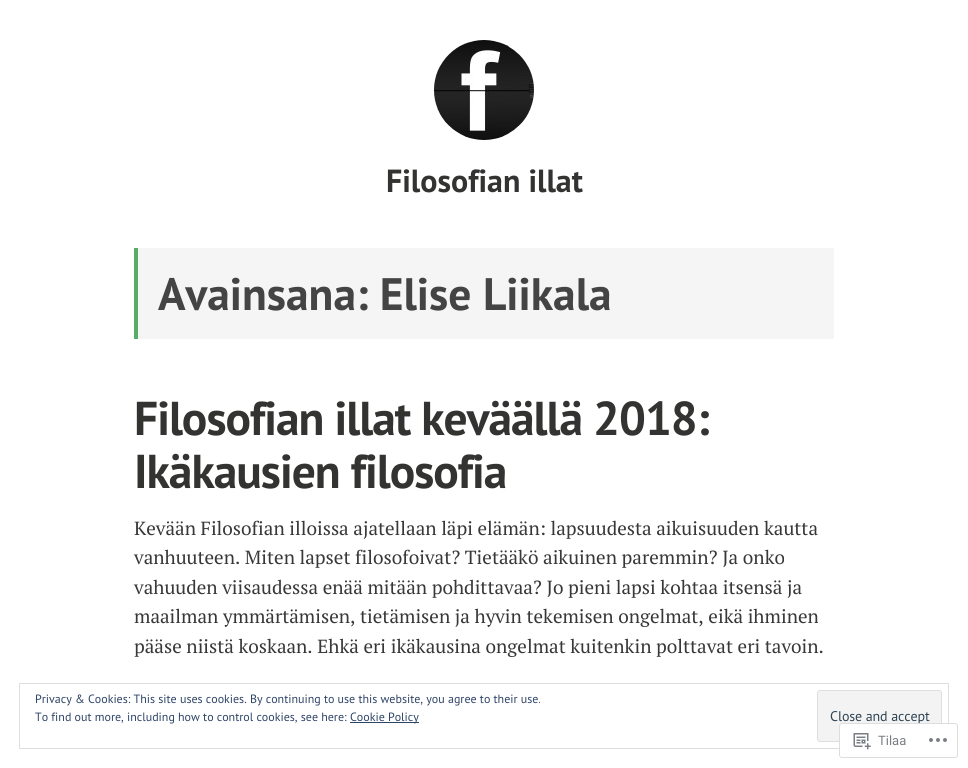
#include <cairo.h>
#include <math.h>
#include <stddef.h>


static void set_color(cairo_t *cr, unsigned color) {
    cairo_set_source_rgb(cr, (color >> 16) / 255.0, (color >> 8 & 255) / 255.0, (color & 255) / 255.0);
}

static void draw_text(cairo_t *cr, double x, double y, const char *s, const char *family, double size, int italic, int bold, unsigned color) {
    cairo_select_font_face(cr, family, italic ? CAIRO_FONT_SLANT_ITALIC : CAIRO_FONT_SLANT_NORMAL,
        bold ? CAIRO_FONT_WEIGHT_BOLD : CAIRO_FONT_WEIGHT_NORMAL);
    cairo_set_font_size(cr, size);
    set_color(cr, color);
    cairo_move_to(cr, x, y);
    cairo_show_text(cr, s);
}

static void draw_spaced(cairo_t *cr, double x, double y, const char *s, double letter, double word) {
    cairo_move_to(cr, x, y);
    while (*s) {
        char ch[5] = {0};
        int n = 0;
        do ch[n++] = *s++; while ((*s & 0xC0) == 0x80);
        cairo_show_text(cr, ch);
        cairo_rel_move_to(cr, letter + word * (*ch == ' '), 0);
    }
}

static void fill_rect(cairo_t *cr, double x, double y, double w, double h, unsigned color) {
    set_color(cr, color);
    cairo_rectangle(cr, x, y, w, h);
    cairo_fill(cr);
}

static void rounded_rect(cairo_t *cr, double x, double y, double w, double h, double r) {
    cairo_new_sub_path(cr);
    cairo_arc(cr, x + w - r, y + h - r, r, 0, M_PI / 2);
    cairo_arc(cr, x + r, y + h - r, r, M_PI / 2, M_PI);
    cairo_arc(cr, x + r, y + r, r, M_PI, 1.5 * M_PI);
    cairo_arc(cr, x + w - r, y + r, r, 1.5 * M_PI, 2 * M_PI);
    cairo_close_path(cr);
}

static void draw_image(cairo_t *cr, const char *path, double x, double y, double w, double h) {
    cairo_surface_t *image = cairo_image_surface_create_from_png(path);
    cairo_save(cr);
    cairo_set_source_surface(cr, image, x, y);
    cairo_rectangle(cr, x, y, w, h);
    cairo_fill(cr);
    cairo_restore(cr);
    cairo_surface_destroy(image);
}

int main(void) {
    cairo_surface_t *surface = cairo_image_surface_create(CAIRO_FORMAT_RGB24, 968, 768);
    cairo_t *cr = cairo_create(surface);
    cairo_font_options_t *options = cairo_font_options_create();
    cairo_font_options_set_hint_metrics(options, CAIRO_HINT_METRICS_OFF);
    cairo_font_options_set_hint_style(options, CAIRO_HINT_STYLE_NONE);
    cairo_set_font_options(cr, options);
    cairo_set_miter_limit(cr, 4);
    set_color(cr, 0xFFFFFF);
    cairo_paint(cr);
    draw_image(cr, "assets/img1.png", 434, 40, 100, 100);
    draw_text(cr, 386, 192, "Filosofian illat", "PT Sans", 32, 0, 1, 0x333332);
    fill_rect(cr, 138, 248, 696, 91, 0xF5F5F5);
    fill_rect(cr, 134, 248, 4, 91, 0x57AD68);
    draw_text(cr, 158, 310, "Avainsana: Elise Liikala", "PT Sans", 45.5, 0, 1, 0x444444);
    cairo_set_font_size(cr, 47.5);
    set_color(cr, 0x333332);
    draw_spaced(cr, 134, 435, "Filosofian illat keväällä 2018:", -1, 0);
    draw_spaced(cr, 134, 488, "Ikäkausien filosofia", -1, 0);
    draw_text(cr, 134, 535, "Kevään Filosofian illoissa ajatellaan läpi elämän: lapsuudesta aikuisuuden kautta", "PT Serif", 19, 0, 0, 0x383838);
    draw_text(cr, 134, 564, "vanhuuteen. Miten lapset filosofoivat? Tietääkö aikuinen paremmin? Ja onko", "PT Serif", 19, 0, 0, 0x383838);
    draw_text(cr, 134, 594, "vahuuden viisaudessa enää mitään pohdittavaa? Jo pieni lapsi kohtaa itsensä ja", "PT Serif", 19, 0, 0, 0x383838);
    draw_text(cr, 134, 623, "maailman ymmärtämisen, tietämisen ja hyvin tekemisen ongelmat, eikä ihminen", "PT Serif", 19, 0, 0, 0x383838);
    draw_text(cr, 134, 653, "pääse niistä koskaan. Ehkä eri ikäkausina ongelmat kuitenkin polttavat eri tavoin.", "PT Serif", 19, 0, 0, 0x383838);
    cairo_rectangle(cr, 19.5, 683.5, 929, 65);
    set_color(cr, 0xDEDEDE);
    cairo_set_line_width(cr, 1);
    cairo_stroke(cr);
    draw_text(cr, 35, 703, "Privacy & Cookies: This site uses cookies. By continuing to use this website, you agree to their use.", "PT Sans", 12, 0, 0, 0x2E4467);
    draw_text(cr, 35, 721, "To find out more, including how to control cookies, see here:", "PT Sans", 12, 0, 0, 0x2E4467);
    fill_rect(cr, 350, 722, 69, 1, 0x2E4467);
    draw_text(cr, 350, 721, "Cookie Policy", "PT Sans", 12, 0, 0, 0x2E4467);
    set_color(cr, 0xF3F3F3);
    rounded_rect(cr, 817.5, 690.5, 124, 51, 2.5);
    cairo_fill_preserve(cr);
    set_color(cr, 0xDEDEDE);
    cairo_stroke(cr);
    cairo_set_font_size(cr, 14);
    set_color(cr, 0x2E4453);
    draw_spaced(cr, 830, 721, "Close and accept", -0.1, 0);
    cairo_set_source_rgba(cr, 1, 1, 1, 0.98);
    rounded_rect(cr, 839, 723, 119, 35, 3);
    cairo_fill(cr);
    rounded_rect(cr, 839.5, 723.5, 118, 34, 2.5);
    cairo_set_source_rgba(cr, 0.863, 0.863, 0.871, 0.98);
    cairo_stroke(cr);
    draw_image(cr, "assets/img2.png", 853, 733, 18, 17);
    draw_text(cr, 878, 745, "Tilaa", "Roboto", 13, 0, 0, 0x7B7F84);
    draw_image(cr, "assets/img3.png", 929, 738, 18, 4);
    cairo_surface_write_to_png(surface, "output.png");
    cairo_font_options_destroy(options);
    cairo_destroy(cr);
    cairo_surface_destroy(surface);
    return 0;
}
